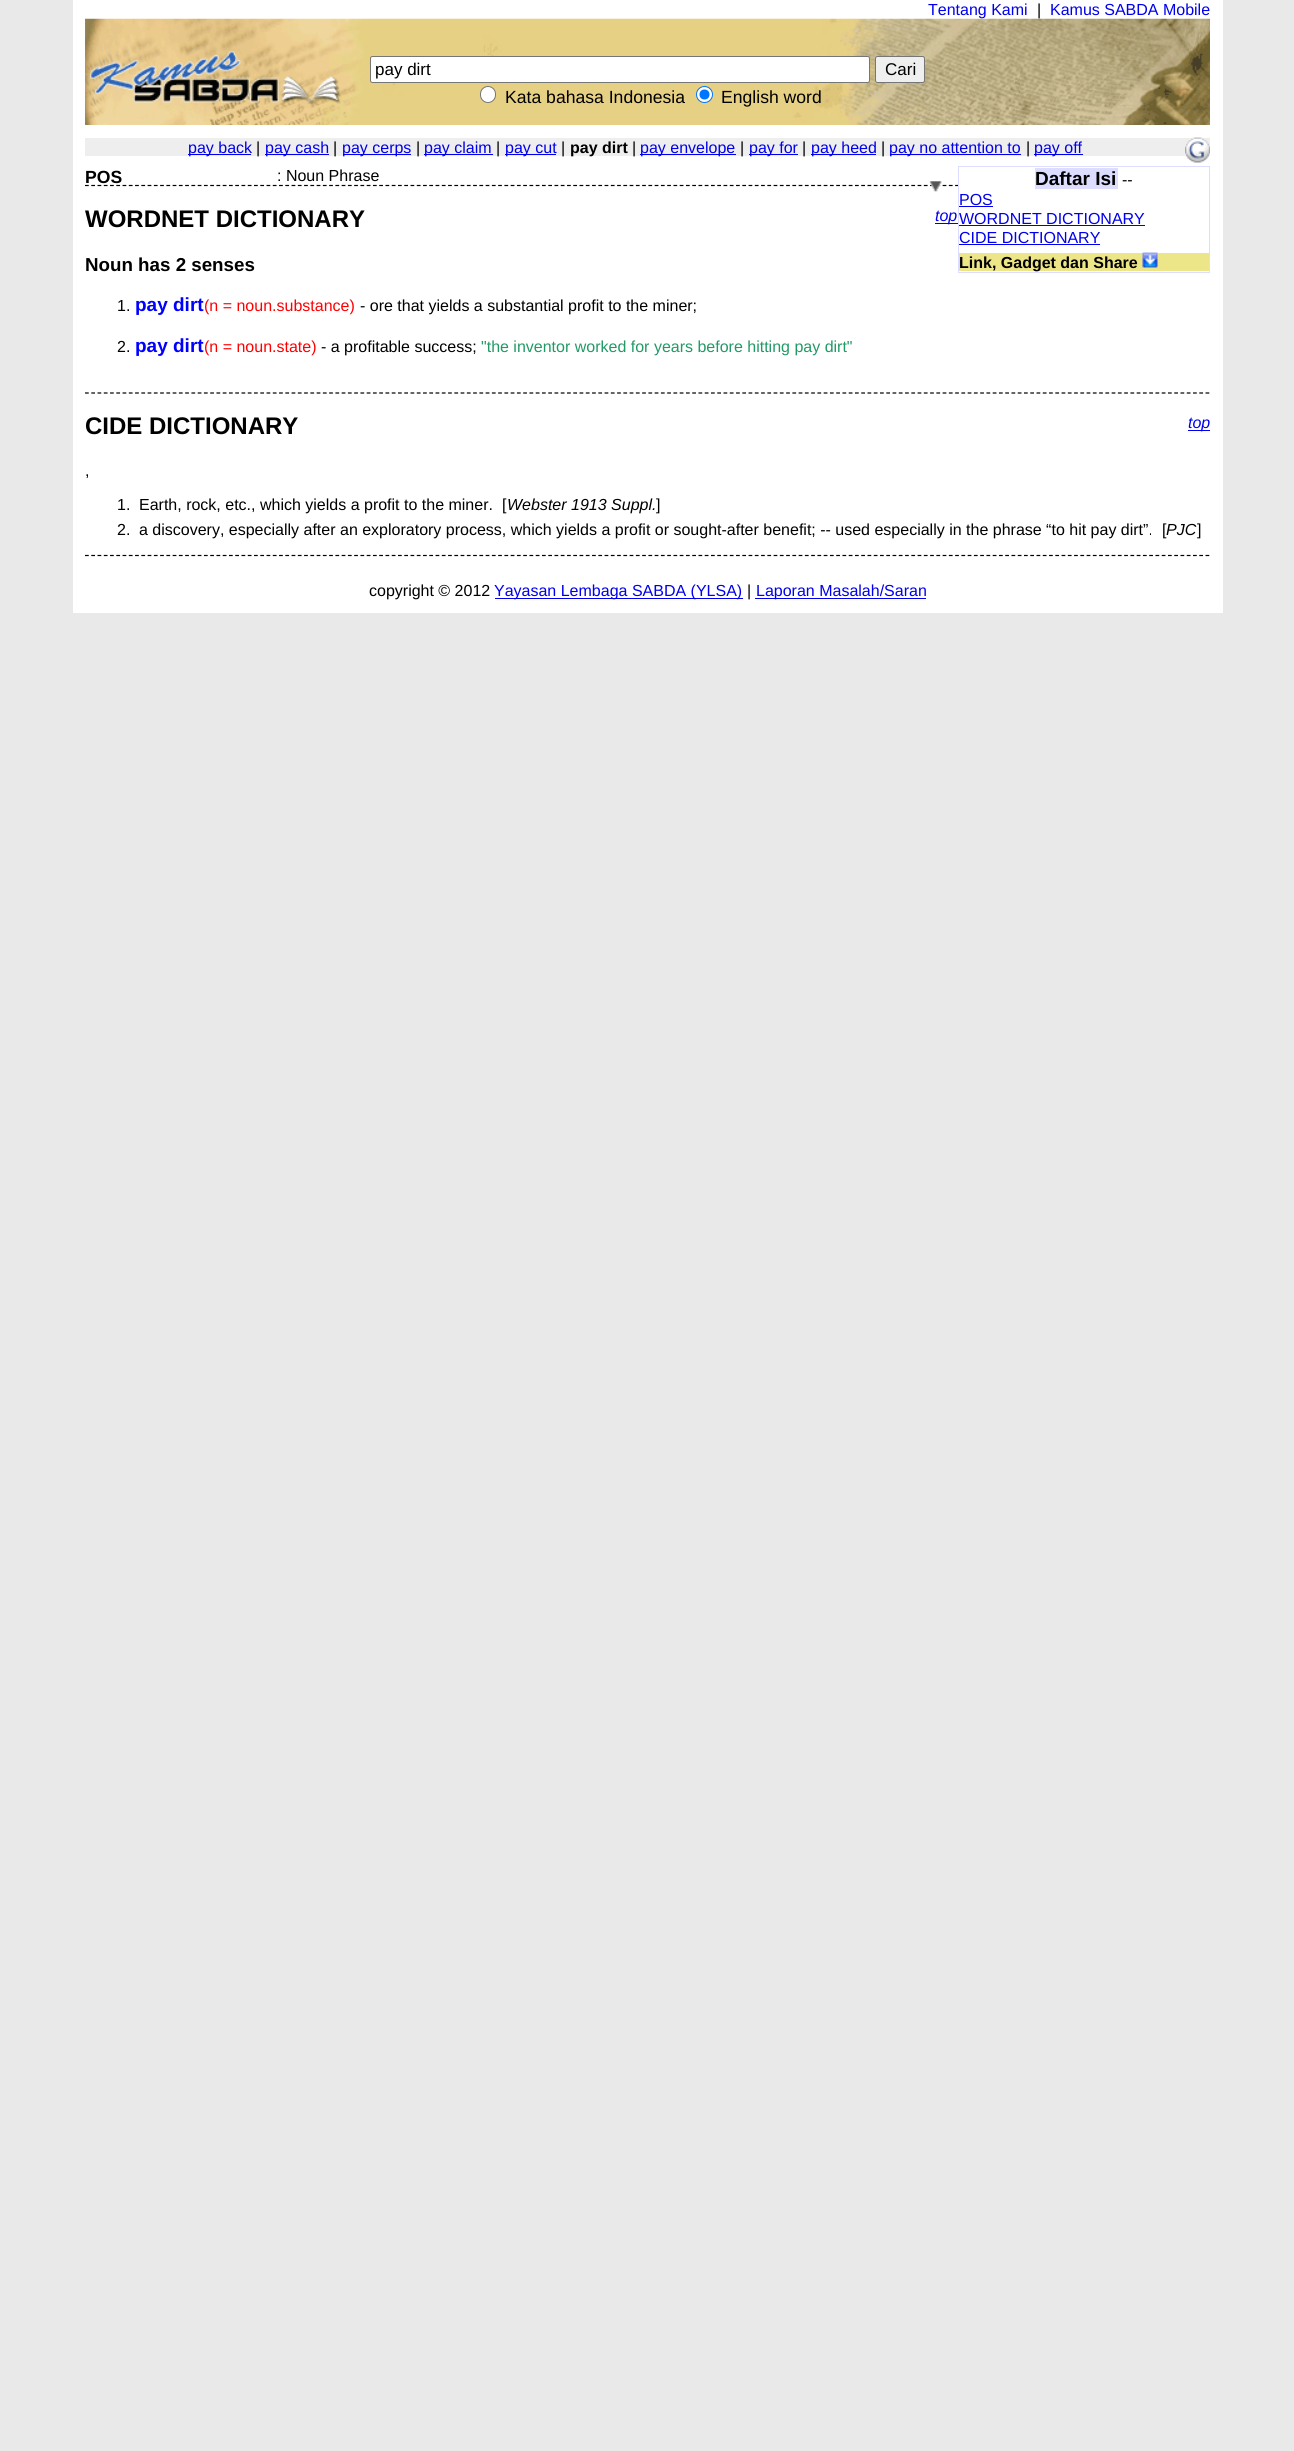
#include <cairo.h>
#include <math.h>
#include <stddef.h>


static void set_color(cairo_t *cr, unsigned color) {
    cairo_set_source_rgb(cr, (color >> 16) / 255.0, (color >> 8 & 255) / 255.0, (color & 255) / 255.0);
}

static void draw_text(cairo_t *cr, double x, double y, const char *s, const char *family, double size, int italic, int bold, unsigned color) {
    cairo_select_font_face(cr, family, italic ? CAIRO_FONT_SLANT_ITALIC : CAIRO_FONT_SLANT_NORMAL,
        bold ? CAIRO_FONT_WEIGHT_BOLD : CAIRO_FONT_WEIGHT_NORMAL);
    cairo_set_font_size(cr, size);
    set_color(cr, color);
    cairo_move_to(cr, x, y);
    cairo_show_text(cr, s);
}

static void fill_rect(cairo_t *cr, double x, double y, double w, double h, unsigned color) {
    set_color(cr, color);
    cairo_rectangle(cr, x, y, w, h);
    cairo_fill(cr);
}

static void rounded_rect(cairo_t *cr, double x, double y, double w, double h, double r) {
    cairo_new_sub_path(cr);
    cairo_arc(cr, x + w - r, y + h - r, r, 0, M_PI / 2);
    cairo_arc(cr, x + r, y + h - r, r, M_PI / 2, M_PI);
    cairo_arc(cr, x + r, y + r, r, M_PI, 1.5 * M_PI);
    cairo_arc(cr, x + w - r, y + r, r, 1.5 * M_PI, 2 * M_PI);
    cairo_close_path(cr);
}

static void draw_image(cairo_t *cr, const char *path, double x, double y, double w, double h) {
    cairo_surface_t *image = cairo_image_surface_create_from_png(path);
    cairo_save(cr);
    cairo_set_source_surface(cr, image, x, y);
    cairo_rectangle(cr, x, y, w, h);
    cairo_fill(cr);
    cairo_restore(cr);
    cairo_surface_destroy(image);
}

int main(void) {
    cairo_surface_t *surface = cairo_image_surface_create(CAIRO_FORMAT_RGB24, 1294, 2451);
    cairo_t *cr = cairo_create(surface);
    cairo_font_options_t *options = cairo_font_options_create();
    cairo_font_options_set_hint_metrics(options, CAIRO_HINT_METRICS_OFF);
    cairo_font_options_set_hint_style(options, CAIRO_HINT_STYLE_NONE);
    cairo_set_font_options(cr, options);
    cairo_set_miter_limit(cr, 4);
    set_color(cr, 0xE9E9E9);
    cairo_paint(cr);
    fill_rect(cr, 73, 0, 1150, 613, 0xFFFFFF);
    draw_image(cr, "assets/img1.png", 85, 18, 1125, 107);
    draw_text(cr, 928, 15, "Tentang Kami", "Liberation Sans", 16, 0, 0, 0x0000EE);
    draw_text(cr, 1037, 15, "|", "Liberation Sans", 16, 0, 0, 0x000000);
    draw_text(cr, 1050, 15, "Kamus SABDA Mobile", "Liberation Sans", 16, 0, 0, 0x0000EE);
    set_color(cr, 0xFFFFFF);
    rounded_rect(cr, 370.5, 56.5, 499, 26, 2);
    cairo_fill_preserve(cr);
    set_color(cr, 0x767676);
    cairo_set_line_width(cr, 1);
    cairo_stroke(cr);
    draw_text(cr, 375, 75, "pay dirt", "Liberation Sans", 17, 0, 0, 0x000000);
    set_color(cr, 0xEFEFEF);
    rounded_rect(cr, 875.5, 56.5, 49, 26, 2);
    cairo_fill_preserve(cr);
    set_color(cr, 0x767676);
    cairo_stroke(cr);
    draw_text(cr, 885, 75, "Cari", "Liberation Sans", 17, 0, 0, 0x000000);
    set_color(cr, 0xFFFFFF);
    rounded_rect(cr, 480.5, 86.5, 15, 16, 7.5);
    cairo_fill_preserve(cr);
    set_color(cr, 0x767676);
    cairo_stroke(cr);
    draw_text(cr, 505, 103, "Kata bahasa Indonesia", "Liberation Sans", 17.6, 0, 0, 0x000000);
    set_color(cr, 0xFFFFFF);
    cairo_new_path(cr);
    cairo_arc(cr, 704.5, 94.5, 8, 0, 2 * M_PI);
    cairo_fill_preserve(cr);
    set_color(cr, 0x0075FF);
    cairo_stroke(cr);
    cairo_arc(cr, 704.5, 94.5, 5, 0, 2 * M_PI);
    cairo_fill(cr);
    draw_text(cr, 721, 103, "English word", "Liberation Sans", 17.6, 0, 0, 0x000000);
    fill_rect(cr, 85, 138, 1125, 18, 0xEEEEEE);
    fill_rect(cr, 188, 154, 63, 1, 0x0000EE);
    draw_text(cr, 188, 153, "pay back", "Liberation Sans", 16, 0, 0, 0x0000EE);
    draw_text(cr, 256, 153, "|", "Liberation Sans", 16, 0, 0, 0x000000);
    fill_rect(cr, 265, 154, 64, 1, 0x0000EE);
    draw_text(cr, 265, 153, "pay cash", "Liberation Sans", 16, 0, 0, 0x0000EE);
    draw_text(cr, 333, 153, "|", "Liberation Sans", 16, 0, 0, 0x000000);
    fill_rect(cr, 343, 154, 68, 1, 0x0000EE);
    draw_text(cr, 342, 153, "pay cerps", "Liberation Sans", 16, 0, 0, 0x0000EE);
    draw_text(cr, 416, 153, "|", "Liberation Sans", 16, 0, 0, 0x000000);
    fill_rect(cr, 424, 154, 69, 1, 0x0000EE);
    draw_text(cr, 424, 153, "pay claim", "Liberation Sans", 16, 0, 0, 0x0000EE);
    draw_text(cr, 496, 153, "|", "Liberation Sans", 16, 0, 0, 0x000000);
    fill_rect(cr, 505, 154, 51, 1, 0x0000EE);
    draw_text(cr, 505, 153, "pay cut", "Liberation Sans", 16, 0, 0, 0x0000EE);
    draw_text(cr, 561, 153, "|", "Liberation Sans", 16, 0, 0, 0x000000);
    draw_text(cr, 570, 153, "pay dirt", "Liberation Sans", 16, 0, 1, 0x000000);
    draw_text(cr, 632, 153, "|", "Liberation Sans", 16, 0, 0, 0x000000);
    fill_rect(cr, 640, 154, 96, 1, 0x0000EE);
    draw_text(cr, 640, 153, "pay envelope", "Liberation Sans", 16, 0, 0, 0x0000EE);
    draw_text(cr, 740, 153, "|", "Liberation Sans", 16, 0, 0, 0x000000);
    fill_rect(cr, 749, 154, 49, 1, 0x0000EE);
    draw_text(cr, 749, 153, "pay for", "Liberation Sans", 16, 0, 0, 0x0000EE);
    draw_text(cr, 802, 153, "|", "Liberation Sans", 16, 0, 0, 0x000000);
    fill_rect(cr, 811, 154, 65, 1, 0x0000EE);
    draw_text(cr, 811, 153, "pay heed", "Liberation Sans", 16, 0, 0, 0x0000EE);
    draw_text(cr, 881, 153, "|", "Liberation Sans", 16, 0, 0, 0x000000);
    fill_rect(cr, 890, 154, 131, 1, 0x0000EE);
    draw_text(cr, 889, 153, "pay no attention to", "Liberation Sans", 16, 0, 0, 0x0000EE);
    draw_text(cr, 1026, 153, "|", "Liberation Sans", 16, 0, 0, 0x000000);
    fill_rect(cr, 1034, 154, 49, 1, 0x0000EE);
    draw_text(cr, 1034, 153, "pay off", "Liberation Sans", 16, 0, 0, 0x0000EE);
    draw_image(cr, "assets/img2.png", 1185, 137, 25, 26);
    cairo_new_path(cr);
    cairo_move_to(cr, 85, 185.5);
    cairo_line_to(cr, 1210, 185.5);
    set_color(cr, 0x000000);
    cairo_set_line_width(cr, 1.2);
    cairo_set_dash(cr, (double[]){3.75, 2.51}, 2, 0);
    cairo_stroke(cr);
    draw_text(cr, 85, 183, "POS", "Liberation Sans", 17.6, 0, 1, 0x000000);
    draw_text(cr, 277, 181, ": Noun Phrase", "Liberation Sans", 16, 0, 0, 0x000000);
    cairo_new_path(cr);
    cairo_move_to(cr, 85, 393);
    cairo_line_to(cr, 1210, 393);
    cairo_stroke(cr);
    draw_text(cr, 85, 227, "WORDNET DICTIONARY", "Liberation Sans", 24, 0, 1, 0x000000);
    fill_rect(cr, 935, 223, 23, 1, 0x0000EE);
    draw_text(cr, 935, 221, "top", "Liberation Sans", 16, 1, 0, 0x0000EE);
    draw_text(cr, 85, 271, "Noun has 2 senses", "Liberation Sans", 18.75, 0, 1, 0x000000);
    draw_text(cr, 117, 311, "1.", "Liberation Sans", 16, 0, 0, 0x000000);
    draw_text(cr, 135, 311, "pay dirt", "Liberation Sans", 19, 0, 1, 0x0000FF);
    draw_text(cr, 204, 311, "(n = noun.substance)", "Liberation Sans", 16, 0, 0, 0xFF0000);
    draw_text(cr, 360, 311, "- ore that yields a substantial profit to the miner;", "Liberation Sans", 16, 0, 0, 0x000000);
    draw_text(cr, 117, 352, "2.", "Liberation Sans", 16, 0, 0, 0x000000);
    draw_text(cr, 135, 352, "pay dirt", "Liberation Sans", 19, 0, 1, 0x0000FF);
    draw_text(cr, 204, 352, "(n = noun.state)", "Liberation Sans", 16, 0, 0, 0xFF0000);
    draw_text(cr, 321, 352, "- a profitable success;", "Liberation Sans", 16, 0, 0, 0x000000);
    draw_text(cr, 481, 352, "\"the inventor worked for years before hitting pay dirt\"", "Liberation Sans", 16, 0, 0, 0x229966);
    cairo_new_path(cr);
    cairo_move_to(cr, 85, 555.5);
    cairo_line_to(cr, 1210, 555.5);
    set_color(cr, 0x000000);
    cairo_stroke(cr);
    draw_text(cr, 85, 434, "CIDE DICTIONARY", "Liberation Sans", 24, 0, 1, 0x000000);
    fill_rect(cr, 1188, 430, 22, 1, 0x0000EE);
    draw_text(cr, 1188, 428, "top", "Liberation Sans", 16, 1, 0, 0x0000EE);
    draw_text(cr, 85, 476, ",", "Liberation Sans", 16, 0, 0, 0x000000);
    draw_text(cr, 117, 510, "1.", "Liberation Sans", 16, 0, 0, 0x000000);
    draw_text(cr, 139, 510, "Earth, rock, etc., which yields a profit to the miner.", "Liberation Sans", 16, 0, 0, 0x000000);
    draw_text(cr, 502, 510, "[", "Liberation Sans", 16, 0, 0, 0x000000);
    draw_text(cr, 507, 510, "Webster 1913 Suppl.", "Liberation Sans", 16, 1, 0, 0x000000);
    draw_text(cr, 656, 510, "]", "Liberation Sans", 16, 0, 0, 0x000000);
    draw_text(cr, 117, 535, "2.", "Liberation Sans", 16, 0, 0, 0x000000);
    draw_text(cr, 139, 535, "a discovery, especially after an exploratory process, which yields a profit or sought-after benefit; -- used especially in the phrase “to hit pay dirt”.", "Liberation Sans", 16, 0, 0, 0x000000);
    draw_text(cr, 1162, 535, "[", "Liberation Sans", 16, 0, 0, 0x000000);
    draw_text(cr, 1166, 535, "PJC", "Liberation Sans", 16, 1, 0, 0x000000);
    draw_text(cr, 1197, 535, "]", "Liberation Sans", 16, 0, 0, 0x000000);
    draw_image(cr, "assets/img3.png", 929, 181, 13, 11);
    fill_rect(cr, 961, 184, 248, 3, 0xFFFFFF);
    cairo_rectangle(cr, 958.5, 166.5, 251, 106);
    set_color(cr, 0xDDDDFF);
    cairo_set_line_width(cr, 1);
    cairo_set_dash(cr, NULL, 0, 0);
    cairo_stroke(cr);
    fill_rect(cr, 1035, 168, 83, 21, 0xDDDDFF);
    draw_text(cr, 1035, 185, "Daftar Isi", "Liberation Sans", 19, 0, 1, 0x000000);
    draw_text(cr, 1122, 185, "--", "Liberation Sans", 16, 0, 0, 0x000000);
    draw_text(cr, 959, 205, "POS", "Liberation Sans", 16, 0, 0, 0x0000EE);
    fill_rect(cr, 959, 206, 34, 1, 0x0000EE);
    draw_text(cr, 959, 224, "WORDNET DICTIONARY", "Liberation Sans", 16, 0, 0, 0x0000EE);
    fill_rect(cr, 959, 225, 186, 1, 0x0000EE);
    draw_text(cr, 959, 243, "CIDE DICTIONARY", "Liberation Sans", 16, 0, 0, 0x0000EE);
    fill_rect(cr, 959, 244, 141, 1, 0x0000EE);
    fill_rect(cr, 959, 253, 250, 18, 0xEDE689);
    draw_text(cr, 959, 268, "Link, Gadget dan Share", "Liberation Sans", 16, 0, 1, 0x000000);
    draw_image(cr, "assets/img4.png", 1142, 252, 16, 16);
    draw_text(cr, 369, 596, "copyright © 2012", "Liberation Sans", 16, 0, 0, 0x000000);
    fill_rect(cr, 495, 598, 248, 1, 0x0000EE);
    draw_text(cr, 494, 596, "Yayasan Lembaga SABDA (YLSA)", "Liberation Sans", 16, 0, 0, 0x0000EE);
    draw_text(cr, 747, 596, "|", "Liberation Sans", 16, 0, 0, 0x000000);
    fill_rect(cr, 755, 598, 171, 1, 0x0000EE);
    draw_text(cr, 756, 596, "Laporan Masalah/Saran", "Liberation Sans", 16, 0, 0, 0x0000EE);
    cairo_surface_write_to_png(surface, "output.png");
    cairo_font_options_destroy(options);
    cairo_destroy(cr);
    cairo_surface_destroy(surface);
    return 0;
}
